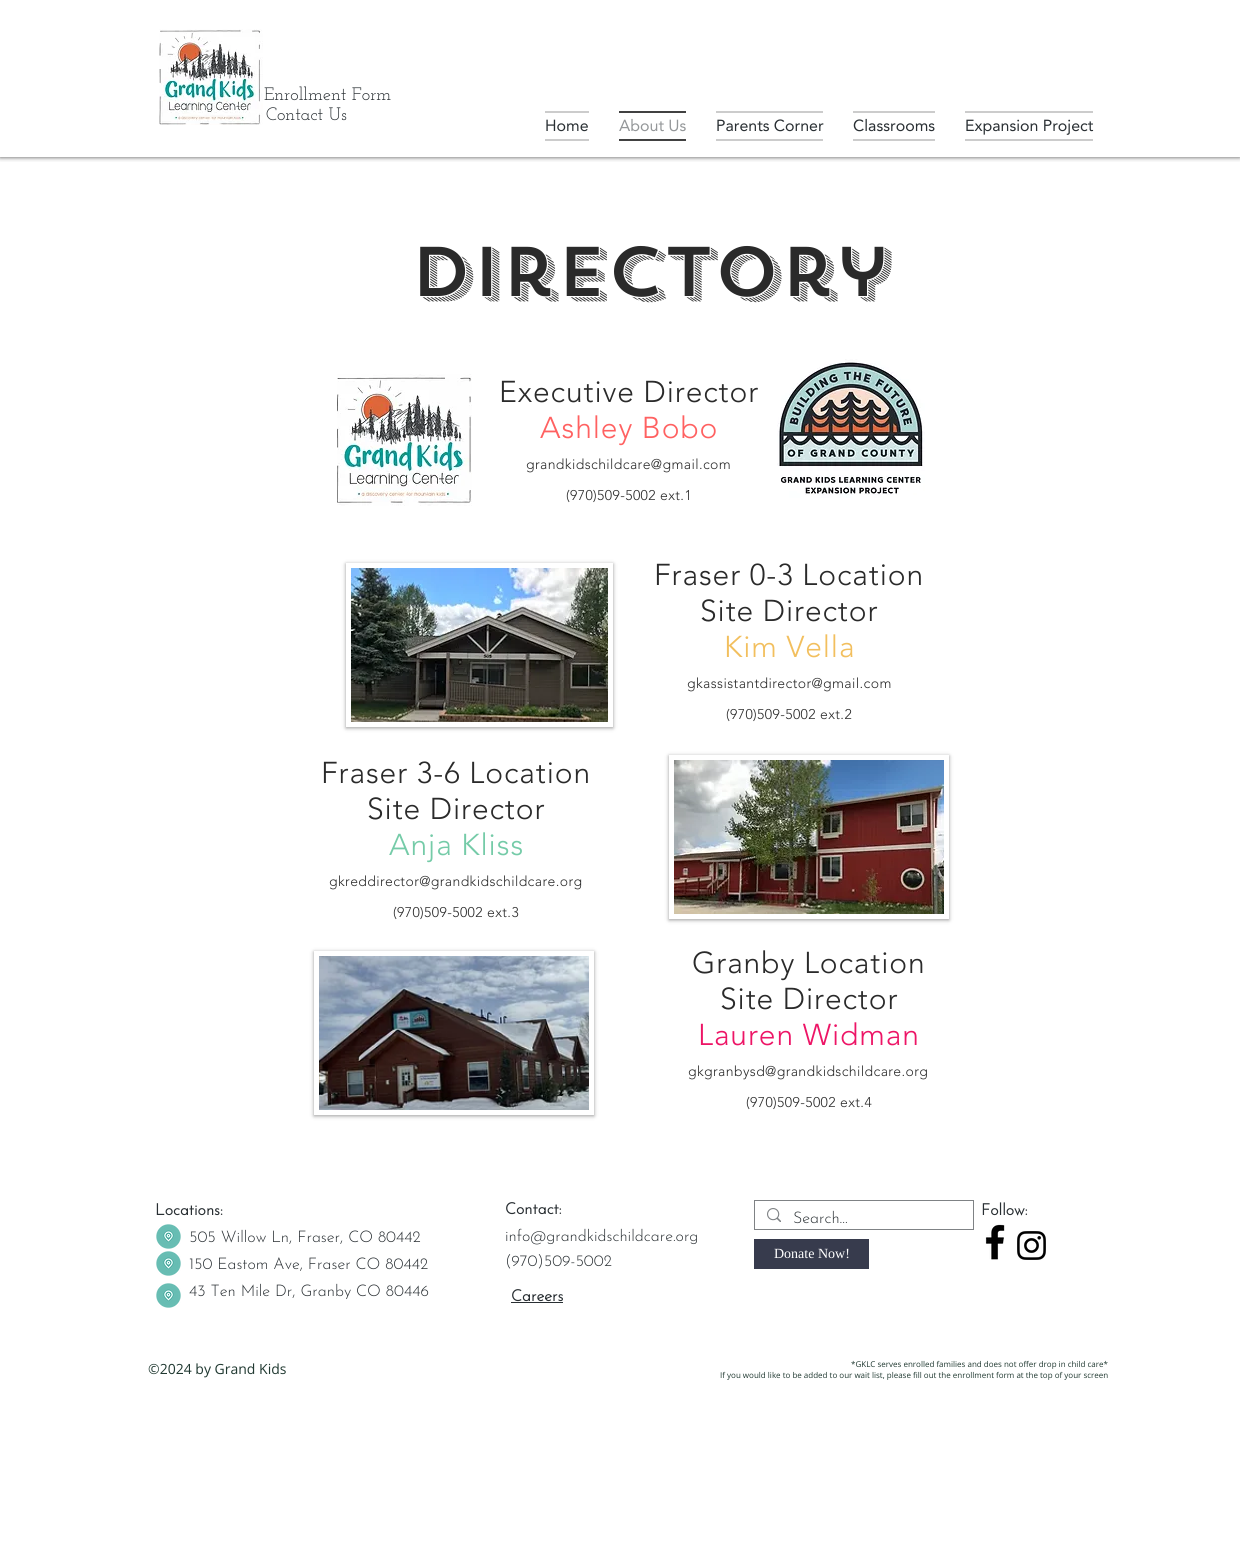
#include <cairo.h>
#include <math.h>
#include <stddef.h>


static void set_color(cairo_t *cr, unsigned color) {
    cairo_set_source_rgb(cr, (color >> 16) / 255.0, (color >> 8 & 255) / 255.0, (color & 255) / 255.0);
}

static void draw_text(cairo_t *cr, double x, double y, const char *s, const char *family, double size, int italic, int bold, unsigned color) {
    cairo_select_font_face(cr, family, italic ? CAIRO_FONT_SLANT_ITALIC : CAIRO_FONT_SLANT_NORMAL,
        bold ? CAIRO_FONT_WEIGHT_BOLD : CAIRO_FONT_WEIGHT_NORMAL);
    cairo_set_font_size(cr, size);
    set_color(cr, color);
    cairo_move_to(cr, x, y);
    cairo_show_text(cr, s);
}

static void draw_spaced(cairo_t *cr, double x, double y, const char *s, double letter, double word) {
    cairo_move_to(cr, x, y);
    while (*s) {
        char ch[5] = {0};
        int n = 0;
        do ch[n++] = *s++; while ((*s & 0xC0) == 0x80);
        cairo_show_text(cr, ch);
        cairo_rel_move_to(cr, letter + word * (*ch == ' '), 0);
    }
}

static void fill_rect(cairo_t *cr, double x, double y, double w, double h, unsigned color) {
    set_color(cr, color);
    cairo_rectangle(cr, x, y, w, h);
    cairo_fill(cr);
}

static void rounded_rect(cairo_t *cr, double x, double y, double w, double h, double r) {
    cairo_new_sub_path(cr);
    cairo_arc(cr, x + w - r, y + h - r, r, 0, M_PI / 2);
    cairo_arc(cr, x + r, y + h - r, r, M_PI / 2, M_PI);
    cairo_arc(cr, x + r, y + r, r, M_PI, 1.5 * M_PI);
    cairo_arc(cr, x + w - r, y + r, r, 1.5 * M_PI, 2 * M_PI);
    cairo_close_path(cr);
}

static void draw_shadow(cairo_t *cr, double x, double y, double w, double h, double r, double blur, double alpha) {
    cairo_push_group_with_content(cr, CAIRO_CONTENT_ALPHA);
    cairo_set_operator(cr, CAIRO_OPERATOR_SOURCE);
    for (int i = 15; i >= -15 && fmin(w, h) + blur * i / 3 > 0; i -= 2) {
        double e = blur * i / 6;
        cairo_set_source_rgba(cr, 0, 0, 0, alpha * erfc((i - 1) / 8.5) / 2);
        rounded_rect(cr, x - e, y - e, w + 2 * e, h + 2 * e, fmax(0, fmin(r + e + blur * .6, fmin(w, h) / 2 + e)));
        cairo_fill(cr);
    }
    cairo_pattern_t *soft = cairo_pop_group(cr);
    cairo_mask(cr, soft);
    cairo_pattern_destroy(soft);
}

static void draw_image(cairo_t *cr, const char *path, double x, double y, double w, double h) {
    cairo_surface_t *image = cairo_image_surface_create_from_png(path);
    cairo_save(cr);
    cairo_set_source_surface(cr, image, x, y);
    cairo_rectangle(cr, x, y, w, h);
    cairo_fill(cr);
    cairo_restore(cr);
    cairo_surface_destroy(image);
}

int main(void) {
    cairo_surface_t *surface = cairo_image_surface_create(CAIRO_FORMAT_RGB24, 1240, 1556);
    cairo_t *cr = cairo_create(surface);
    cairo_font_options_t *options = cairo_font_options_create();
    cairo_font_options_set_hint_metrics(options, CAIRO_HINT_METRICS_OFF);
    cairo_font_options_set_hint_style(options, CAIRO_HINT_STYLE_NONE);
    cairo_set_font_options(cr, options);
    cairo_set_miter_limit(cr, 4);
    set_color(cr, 0xFFFFFF);
    cairo_paint(cr);
    cairo_save(cr);
    cairo_rectangle(cr, 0, 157, 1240, 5);
    cairo_clip(cr);
    set_color(cr, 0x000000);
    draw_shadow(cr, 0, 0, 1240, 157, 0, 2.5, 0.7);
    cairo_restore(cr);
    draw_image(cr, "assets/img1.png", 159, 29, 104, 96);
    draw_text(cr, 264, 100, "Enrollment Form", "Josefin Slab", 18, 0, 0, 0x292F33);
    draw_text(cr, 266, 120, "Contact Us", "Josefin Slab", 18, 0, 0, 0x292F33);
    fill_rect(cr, 545, 111, 44, 2, 0xCCCCCC);
    fill_rect(cr, 545, 139, 44, 2, 0xCCCCCC);
    draw_text(cr, 545, 131, "Home", "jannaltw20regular", 16, 0, 0, 0x292F33);
    fill_rect(cr, 619, 111, 67, 2, 0x414141);
    fill_rect(cr, 619, 139, 67, 2, 0x414141);
    draw_text(cr, 619, 131, "About Us", "jannaltw20regular", 16, 0, 0, 0x949799);
    fill_rect(cr, 716, 111, 107, 2, 0xCCCCCC);
    fill_rect(cr, 716, 139, 107, 2, 0xCCCCCC);
    draw_text(cr, 716, 131, "Parents Corner", "jannaltw20regular", 16, 0, 0, 0x292F33);
    fill_rect(cr, 853, 111, 82, 2, 0xCCCCCC);
    fill_rect(cr, 853, 139, 82, 2, 0xCCCCCC);
    draw_text(cr, 853, 131, "Classrooms", "jannaltw20regular", 16, 0, 0, 0x292F33);
    fill_rect(cr, 965, 111, 128, 2, 0xCCCCCC);
    fill_rect(cr, 965, 139, 128, 2, 0xCCCCCC);
    draw_text(cr, 965, 131, "Expansion Project", "jannaltw20regular", 16, 0, 0, 0x292F33);
    draw_text(cr, 410, 296, "Directory", "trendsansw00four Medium", 70, 0, 0, 0x2A2A2A);
    draw_image(cr, "assets/img2.png", 337, 374, 135, 132);
    cairo_select_font_face(cr, "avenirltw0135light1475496 Light", CAIRO_FONT_SLANT_NORMAL, CAIRO_FONT_WEIGHT_NORMAL);
    cairo_set_font_size(cr, 30);
    draw_spaced(cr, 499, 402, "Executive Director", 0.9, 0);
    set_color(cr, 0xFF6161);
    draw_spaced(cr, 540, 438, "Ashley Bobo", 0.9, 0);
    cairo_set_font_size(cr, 14);
    set_color(cr, 0x2A2A2A);
    draw_spaced(cr, 526, 469, "grandkidschildcare@gmail.com", 0.4, 0);
    draw_spaced(cr, 566, 500, "(970)509-5002 ext.1", 0.4, 0);
    draw_image(cr, "assets/img3.png", 777, 359, 148, 139);
    cairo_save(cr);
    cairo_set_fill_rule(cr, CAIRO_FILL_RULE_EVEN_ODD);
    cairo_new_path(cr);
    cairo_move_to(cr, 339, 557);
    cairo_line_to(cr, 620, 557);
    cairo_line_to(cr, 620, 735);
    cairo_line_to(cr, 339, 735);
    cairo_close_path(cr);
    cairo_move_to(cr, 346, 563);
    cairo_line_to(cr, 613, 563);
    cairo_line_to(cr, 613, 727);
    cairo_line_to(cr, 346, 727);
    cairo_close_path(cr);
    cairo_clip(cr);
    set_color(cr, 0x000000);
    draw_shadow(cr, 346, 564, 267, 164, 0, 2, 0.4);
    cairo_restore(cr);
    draw_image(cr, "assets/img4.png", 351, 568, 257, 154);
    cairo_set_font_size(cr, 30);
    draw_spaced(cr, 654, 585, "Fraser 0-3 Location", 0.9, 0);
    draw_spaced(cr, 700, 621, "Site Director", 0.9, 0);
    set_color(cr, 0xF2BF5E);
    draw_spaced(cr, 724, 657, "Kim Vella", 0.9, 0);
    cairo_set_font_size(cr, 14);
    set_color(cr, 0x2A2A2A);
    draw_spaced(cr, 687, 688, "gkassistantdirector@gmail.com", 0.4, 0);
    draw_spaced(cr, 726, 719, "(970)509-5002 ext.2", 0.4, 0);
    cairo_set_font_size(cr, 30);
    draw_spaced(cr, 321, 783, "Fraser 3-6 Location", 0.9, 0);
    draw_spaced(cr, 367, 819, "Site Director", 0.9, 0);
    set_color(cr, 0x75CBA8);
    draw_spaced(cr, 389, 855, "Anja Kliss", 0.9, 0);
    cairo_set_font_size(cr, 14);
    set_color(cr, 0x2A2A2A);
    draw_spaced(cr, 329, 886, "gkreddirector@grandkidschildcare.org", 0.4, 0);
    draw_spaced(cr, 393, 917, "(970)509-5002 ext.3", 0.4, 0);
    cairo_save(cr);
    cairo_set_fill_rule(cr, CAIRO_FILL_RULE_EVEN_ODD);
    cairo_new_path(cr);
    cairo_move_to(cr, 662, 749);
    cairo_line_to(cr, 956, 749);
    cairo_line_to(cr, 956, 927);
    cairo_line_to(cr, 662, 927);
    cairo_close_path(cr);
    cairo_move_to(cr, 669, 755);
    cairo_line_to(cr, 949, 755);
    cairo_line_to(cr, 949, 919);
    cairo_line_to(cr, 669, 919);
    cairo_close_path(cr);
    cairo_clip(cr);
    set_color(cr, 0x000000);
    draw_shadow(cr, 669, 756, 280, 164, 0, 2, 0.4);
    cairo_restore(cr);
    draw_image(cr, "assets/img5.png", 674, 760, 270, 154);
    cairo_save(cr);
    cairo_set_fill_rule(cr, CAIRO_FILL_RULE_EVEN_ODD);
    cairo_new_path(cr);
    cairo_move_to(cr, 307, 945);
    cairo_line_to(cr, 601, 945);
    cairo_line_to(cr, 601, 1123);
    cairo_line_to(cr, 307, 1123);
    cairo_close_path(cr);
    cairo_move_to(cr, 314, 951);
    cairo_line_to(cr, 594, 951);
    cairo_line_to(cr, 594, 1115);
    cairo_line_to(cr, 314, 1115);
    cairo_close_path(cr);
    cairo_clip(cr);
    set_color(cr, 0x000000);
    draw_shadow(cr, 314, 952, 280, 164, 0, 2, 0.4);
    cairo_restore(cr);
    draw_image(cr, "assets/img6.png", 319, 956, 270, 154);
    cairo_set_font_size(cr, 30);
    draw_spaced(cr, 692, 973, "Granby Location", 0.9, 0);
    draw_spaced(cr, 720, 1009, "Site Director", 0.9, 0);
    set_color(cr, 0xED1566);
    draw_spaced(cr, 698, 1045, "Lauren Widman", 0.9, 0);
    cairo_set_font_size(cr, 14);
    set_color(cr, 0x2A2A2A);
    draw_spaced(cr, 688, 1076, "gkgranbysd@grandkidschildcare.org", 0.4, 0);
    draw_spaced(cr, 746, 1107, "(970)509-5002 ext.4", 0.4, 0);
    draw_text(cr, 155, 1215, "Locations:", "Josefin Sans", 16, 0, 1, 0x292F33);
    draw_text(cr, 505, 1214, "Contact:", "Josefin Sans", 16, 0, 1, 0x292F33);
    draw_text(cr, 981, 1215, "Follow:", "Josefin Sans", 16, 0, 1, 0x292F33);
    cairo_rectangle(cr, 754.5, 1200.5, 219, 29);
    set_color(cr, 0x7F8285);
    cairo_set_line_width(cr, 1);
    cairo_stroke(cr);
    draw_image(cr, "assets/img7.png", 767, 1208, 14, 14);
    draw_text(cr, 793, 1223, "Search...", "Josefin Sans Thin", 16, 0, 0, 0x292F33);
    draw_image(cr, "assets/img8.png", 156, 1224, 25, 25);
    draw_text(cr, 189, 1242, "505 Willow Ln, Fraser, CO 80442", "Josefin Sans Thin", 16, 0, 0, 0x292F33);
    draw_text(cr, 189, 1269, "150 Eastom Ave, Fraser CO 80442", "Josefin Sans Thin", 16, 0, 0, 0x292F33);
    draw_text(cr, 189, 1296, "43 Ten Mile Dr, Granby CO 80446", "Josefin Sans Thin", 16, 0, 0, 0x292F33);
    draw_text(cr, 505, 1241, "info@grandkidschildcare.org", "Josefin Sans Thin", 16, 0, 0, 0x292F33);
    draw_text(cr, 505, 1266, "(970)509-5002", "Josefin Sans Thin", 16, 0, 0, 0x292F33);
    fill_rect(cr, 754, 1239, 115, 30, 0x373B4D);
    draw_text(cr, 774, 1258, "Donate Now!", "Liberation Serif", 14, 0, 0, 0xFFFFFF);
    draw_image(cr, "assets/img9.png", 985, 1224, 20, 36);
    draw_image(cr, "assets/img10.png", 1017, 1231, 29, 29);
    draw_image(cr, "assets/img8.png", 156, 1251, 25, 25);
    draw_image(cr, "assets/img8.png", 156, 1283, 25, 25);
    draw_text(cr, 511, 1301, "Careers", "Josefin Sans", 16, 0, 1, 0x292F33);
    fill_rect(cr, 511, 1302, 52, 1, 0x292F33);
    draw_text(cr, 148, 1374, "©2024 by Grand Kids", "Open Sans", 14, 0, 0, 0x203931);
    draw_text(cr, 851, 1367, "*GKLC serves enrolled families and does not offer drop in child care*", "Open Sans", 8, 0, 0, 0x203931);
    draw_text(cr, 720, 1378, "If you would like to be added to our wait list, please fill out the enrollment form at the top of your screen", "Open Sans", 8, 0, 0, 0x203931);
    cairo_surface_write_to_png(surface, "output.png");
    cairo_font_options_destroy(options);
    cairo_destroy(cr);
    cairo_surface_destroy(surface);
    return 0;
}
